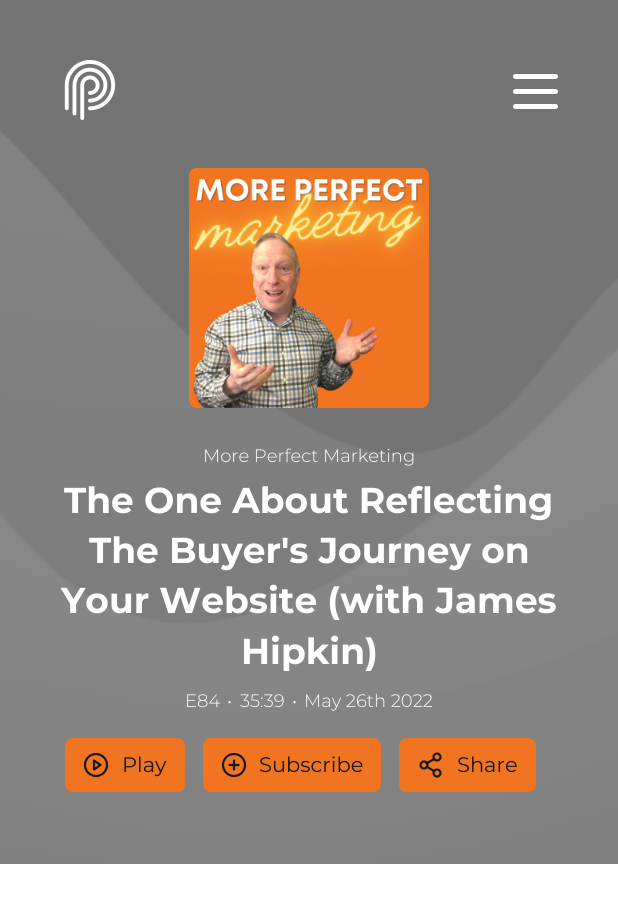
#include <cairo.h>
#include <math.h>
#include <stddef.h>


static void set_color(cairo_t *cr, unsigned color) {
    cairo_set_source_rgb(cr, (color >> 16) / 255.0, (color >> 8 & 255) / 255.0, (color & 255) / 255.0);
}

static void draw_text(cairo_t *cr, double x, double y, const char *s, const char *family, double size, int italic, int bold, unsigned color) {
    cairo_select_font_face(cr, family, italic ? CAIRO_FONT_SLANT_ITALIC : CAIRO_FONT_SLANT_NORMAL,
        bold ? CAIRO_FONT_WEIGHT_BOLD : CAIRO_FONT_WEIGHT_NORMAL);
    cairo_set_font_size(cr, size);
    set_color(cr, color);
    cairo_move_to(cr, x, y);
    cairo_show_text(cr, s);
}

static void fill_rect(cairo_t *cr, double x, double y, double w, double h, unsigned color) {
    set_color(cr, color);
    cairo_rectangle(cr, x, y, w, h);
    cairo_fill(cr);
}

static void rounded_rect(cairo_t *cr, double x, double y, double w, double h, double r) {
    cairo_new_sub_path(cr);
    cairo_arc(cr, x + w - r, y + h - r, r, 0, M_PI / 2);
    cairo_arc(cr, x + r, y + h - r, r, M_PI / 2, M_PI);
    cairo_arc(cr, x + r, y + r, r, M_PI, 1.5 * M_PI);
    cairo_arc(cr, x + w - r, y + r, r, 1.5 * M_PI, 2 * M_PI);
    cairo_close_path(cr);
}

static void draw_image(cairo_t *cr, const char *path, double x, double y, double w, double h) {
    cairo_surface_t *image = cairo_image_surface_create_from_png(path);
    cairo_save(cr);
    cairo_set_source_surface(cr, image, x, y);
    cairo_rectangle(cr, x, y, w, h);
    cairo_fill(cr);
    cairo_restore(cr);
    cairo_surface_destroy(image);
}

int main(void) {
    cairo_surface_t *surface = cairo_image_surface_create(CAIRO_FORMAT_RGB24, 618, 903);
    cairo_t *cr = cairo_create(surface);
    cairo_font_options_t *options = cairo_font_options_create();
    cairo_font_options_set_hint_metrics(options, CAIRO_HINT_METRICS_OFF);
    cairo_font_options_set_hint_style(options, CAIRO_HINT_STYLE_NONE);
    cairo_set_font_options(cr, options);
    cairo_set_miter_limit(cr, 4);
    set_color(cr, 0x737373);
    cairo_paint(cr);
    draw_image(cr, "assets/img1.png", 0, 130, 618, 734);
    draw_image(cr, "assets/img2.png", 64, 60, 52, 60);
    set_color(cr, 0xFFFFFF);
    rounded_rect(cr, 513, 74, 45, 5, 2.5);
    cairo_fill(cr);
    rounded_rect(cr, 513, 89, 45, 5, 2.5);
    cairo_fill(cr);
    rounded_rect(cr, 513, 104, 45, 5, 2.5);
    cairo_fill(cr);
    draw_image(cr, "assets/img3.png", 189, 168, 240, 240);
    draw_text(cr, 203, 462, "More Perfect Marketing", "Montserrat Light", 18, 0, 0, 0xFFFFFF);
    draw_text(cr, 64, 513, "The One About Reflecting", "Montserrat", 36, 0, 1, 0xFFFFFF);
    draw_text(cr, 89, 563, "The Buyer's Journey on", "Montserrat", 36, 0, 1, 0xFFFFFF);
    draw_text(cr, 61, 613, "Your Website (with James", "Montserrat", 36, 0, 1, 0xFFFFFF);
    draw_text(cr, 241, 664, "Hipkin)", "Montserrat", 36, 0, 1, 0xFFFFFF);
    draw_text(cr, 185, 707, "E84", "Montserrat Light", 18, 0, 0, 0xFFFFFF);
    draw_text(cr, 227, 707, "•", "Montserrat Light", 18, 0, 0, 0xFFFFFF);
    draw_text(cr, 240, 707, "35:39", "Montserrat Light", 18, 0, 0, 0xFFFFFF);
    draw_text(cr, 292, 707, "•", "Montserrat Light", 18, 0, 0, 0xFFFFFF);
    draw_text(cr, 304, 707, "May 26th 2022", "Montserrat Light", 18, 0, 0, 0xFFFFFF);
    set_color(cr, 0xF17420);
    rounded_rect(cr, 65, 738, 120, 54, 8);
    cairo_fill(cr);
    cairo_arc(cr, 96, 765, 11, 0, 2 * M_PI);
    set_color(cr, 0x171717);
    cairo_set_line_width(cr, 2.2);
    cairo_stroke(cr);
    cairo_new_path(cr);
    cairo_move_to(cr, 94, 760.5);
    cairo_line_to(cr, 100.5, 765);
    cairo_line_to(cr, 94, 769.5);
    cairo_close_path(cr);
    cairo_set_line_cap(cr, CAIRO_LINE_CAP_ROUND);
    cairo_set_line_join(cr, CAIRO_LINE_JOIN_ROUND);
    cairo_stroke(cr);
    draw_text(cr, 122, 772, "Play", "Montserrat", 21, 0, 0, 0x171717);
    set_color(cr, 0xF17420);
    rounded_rect(cr, 203, 738, 178, 54, 8);
    cairo_fill(cr);
    cairo_arc(cr, 234, 765, 11, 0, 2 * M_PI);
    set_color(cr, 0x171717);
    cairo_set_line_cap(cr, CAIRO_LINE_CAP_BUTT);
    cairo_set_line_join(cr, CAIRO_LINE_JOIN_MITER);
    cairo_stroke(cr);
    cairo_new_path(cr);
    cairo_move_to(cr, 234, 760.5);
    cairo_line_to(cr, 234, 769.5);
    cairo_move_to(cr, 229.5, 765);
    cairo_line_to(cr, 238.5, 765);
    cairo_set_line_cap(cr, CAIRO_LINE_CAP_ROUND);
    cairo_set_line_join(cr, CAIRO_LINE_JOIN_ROUND);
    cairo_stroke(cr);
    draw_text(cr, 259, 772, "Subscribe", "Montserrat", 21, 0, 0, 0x171717);
    set_color(cr, 0xF17420);
    rounded_rect(cr, 399, 738, 137, 54, 8);
    cairo_fill(cr);
    draw_image(cr, "assets/img4.png", 419, 752, 23, 26);
    draw_text(cr, 457, 772, "Share", "Montserrat", 21, 0, 0, 0x171717);
    fill_rect(cr, 0, 864, 618, 39, 0xFFFFFF);
    cairo_surface_write_to_png(surface, "output.png");
    cairo_font_options_destroy(options);
    cairo_destroy(cr);
    cairo_surface_destroy(surface);
    return 0;
}
